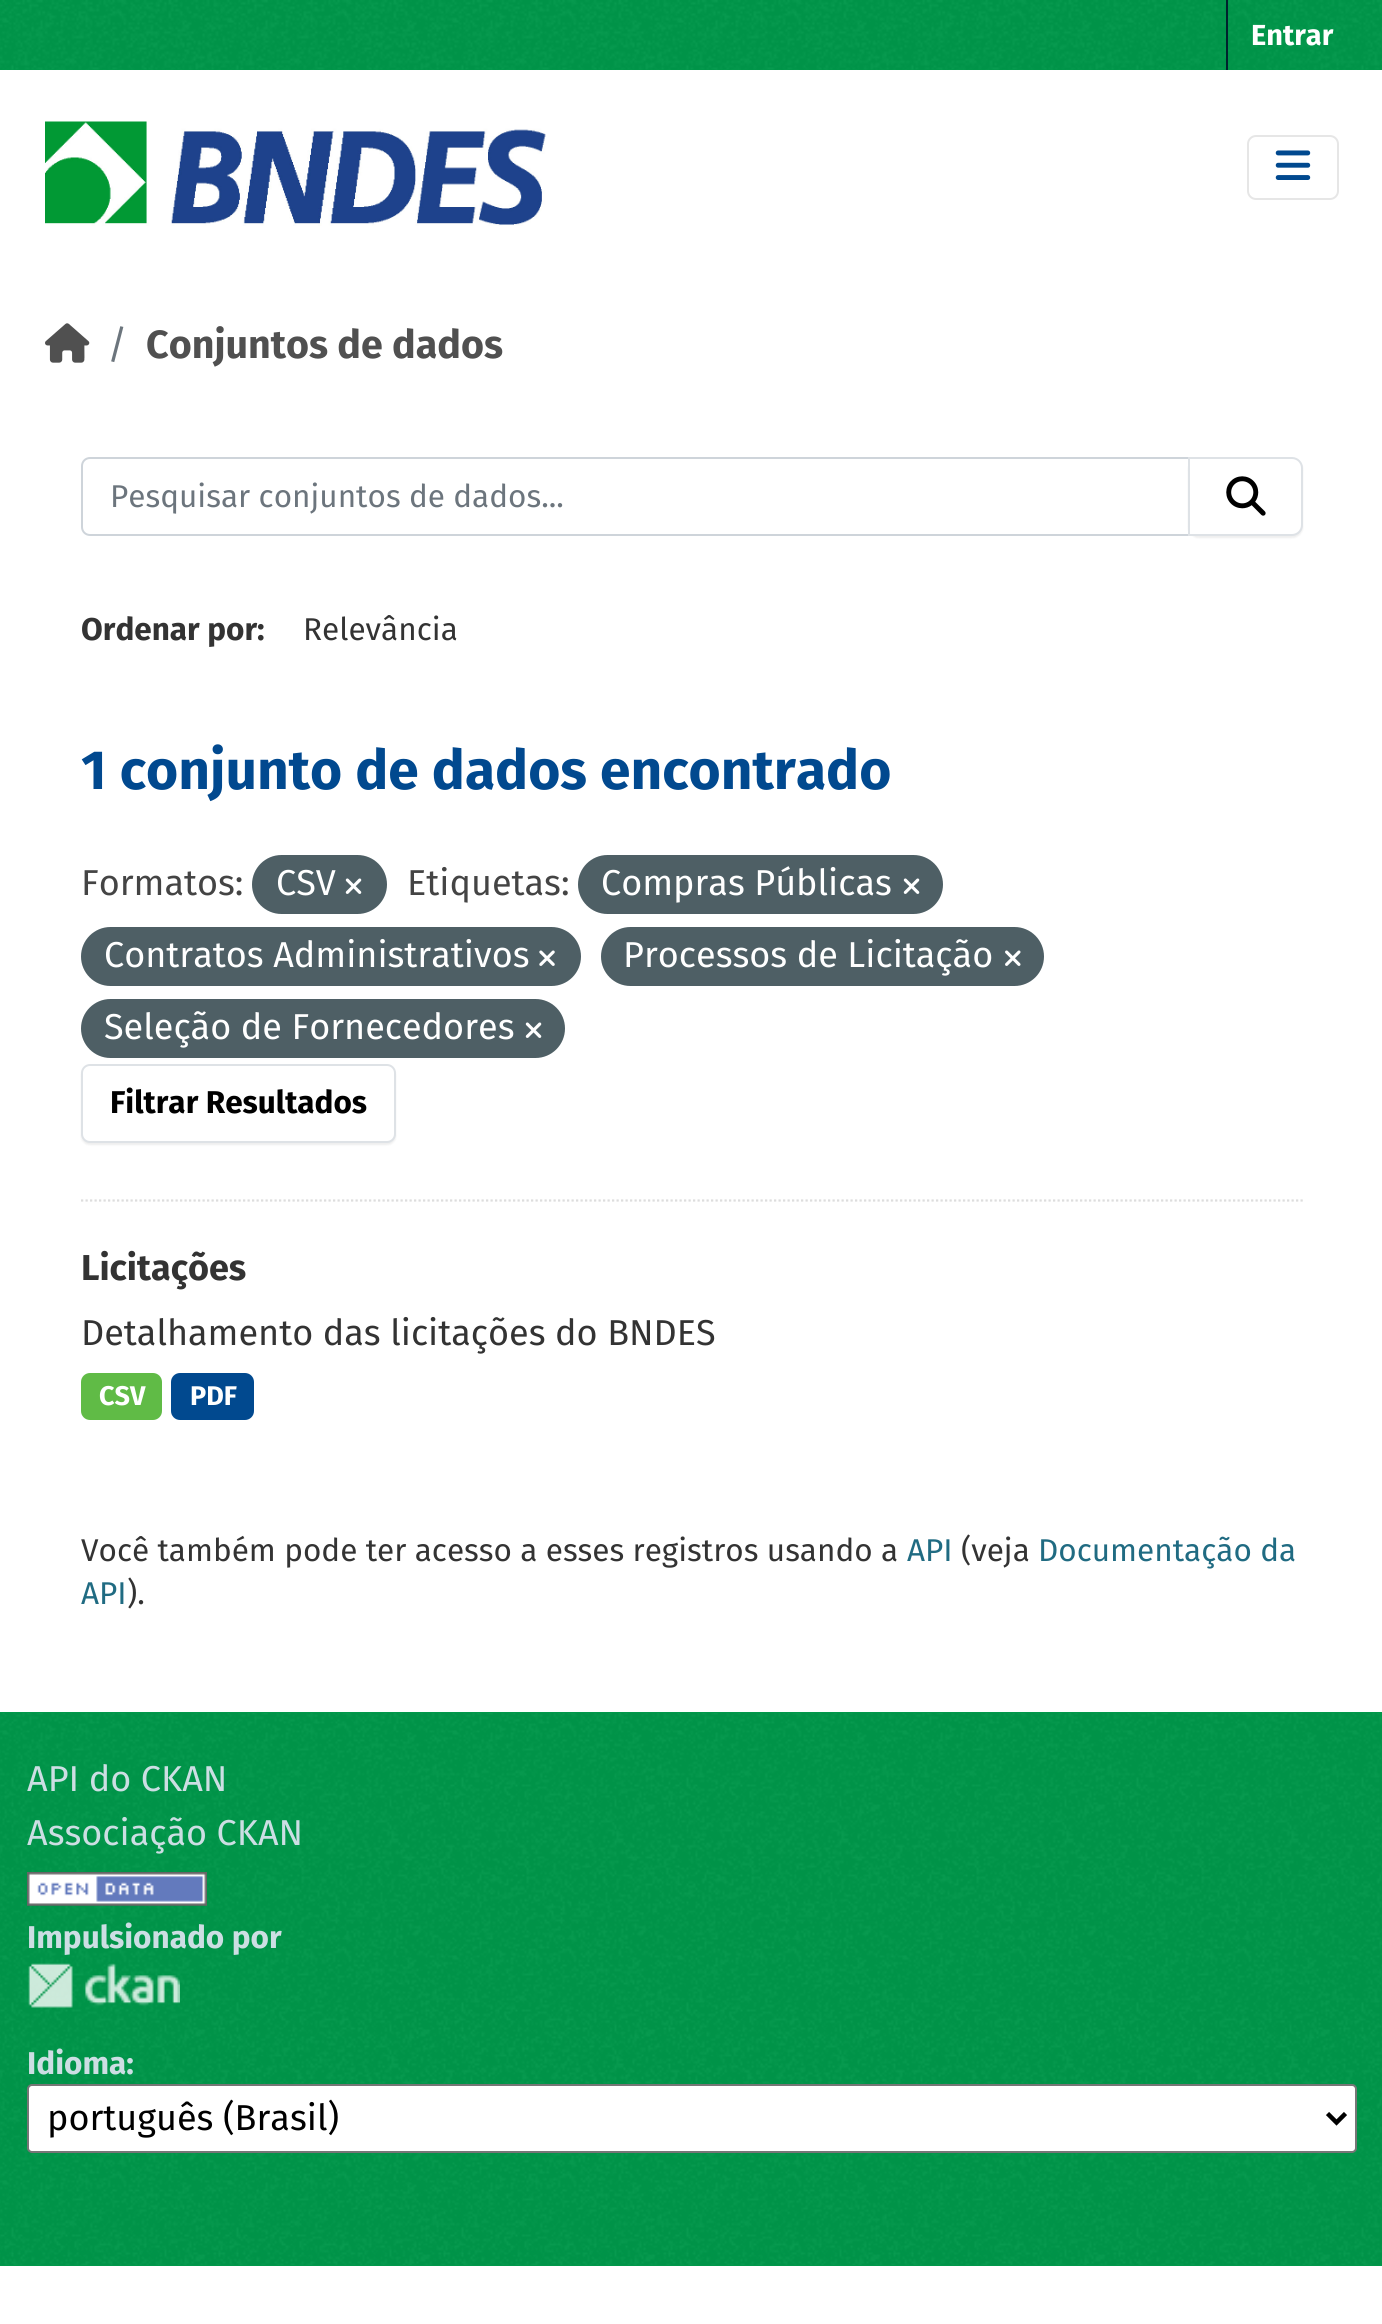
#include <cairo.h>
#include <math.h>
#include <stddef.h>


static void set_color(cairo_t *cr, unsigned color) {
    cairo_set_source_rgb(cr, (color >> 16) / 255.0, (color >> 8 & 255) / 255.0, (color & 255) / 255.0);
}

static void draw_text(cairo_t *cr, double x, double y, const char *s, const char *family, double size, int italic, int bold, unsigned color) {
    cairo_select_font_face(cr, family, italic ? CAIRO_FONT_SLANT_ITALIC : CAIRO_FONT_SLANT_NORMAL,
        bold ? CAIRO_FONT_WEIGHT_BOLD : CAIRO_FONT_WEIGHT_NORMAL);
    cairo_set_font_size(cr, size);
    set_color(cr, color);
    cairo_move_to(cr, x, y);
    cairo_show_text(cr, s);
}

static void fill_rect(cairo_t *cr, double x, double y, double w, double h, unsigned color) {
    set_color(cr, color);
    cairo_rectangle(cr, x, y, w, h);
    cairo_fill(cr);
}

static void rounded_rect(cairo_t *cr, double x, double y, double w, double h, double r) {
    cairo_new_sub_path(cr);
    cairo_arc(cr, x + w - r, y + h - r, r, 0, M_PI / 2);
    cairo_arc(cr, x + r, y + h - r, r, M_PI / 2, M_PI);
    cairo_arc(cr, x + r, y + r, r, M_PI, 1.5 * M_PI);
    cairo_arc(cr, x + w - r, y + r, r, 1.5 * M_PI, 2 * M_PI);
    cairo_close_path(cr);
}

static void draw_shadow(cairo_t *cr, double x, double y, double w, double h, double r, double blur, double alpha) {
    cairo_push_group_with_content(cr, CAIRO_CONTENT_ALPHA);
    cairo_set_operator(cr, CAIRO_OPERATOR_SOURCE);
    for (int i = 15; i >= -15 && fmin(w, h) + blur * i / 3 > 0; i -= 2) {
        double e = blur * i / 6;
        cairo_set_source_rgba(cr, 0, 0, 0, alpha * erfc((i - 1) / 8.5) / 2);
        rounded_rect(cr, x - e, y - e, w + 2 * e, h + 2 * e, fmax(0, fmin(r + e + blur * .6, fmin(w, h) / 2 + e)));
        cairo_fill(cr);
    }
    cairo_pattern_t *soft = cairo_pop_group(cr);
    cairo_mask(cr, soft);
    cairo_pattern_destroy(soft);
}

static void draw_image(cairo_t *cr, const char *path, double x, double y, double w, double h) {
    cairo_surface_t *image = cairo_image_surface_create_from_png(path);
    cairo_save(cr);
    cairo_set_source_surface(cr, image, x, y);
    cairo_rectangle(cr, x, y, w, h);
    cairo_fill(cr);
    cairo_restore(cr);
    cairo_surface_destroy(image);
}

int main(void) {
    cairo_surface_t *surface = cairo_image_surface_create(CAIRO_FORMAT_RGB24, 1382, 2324);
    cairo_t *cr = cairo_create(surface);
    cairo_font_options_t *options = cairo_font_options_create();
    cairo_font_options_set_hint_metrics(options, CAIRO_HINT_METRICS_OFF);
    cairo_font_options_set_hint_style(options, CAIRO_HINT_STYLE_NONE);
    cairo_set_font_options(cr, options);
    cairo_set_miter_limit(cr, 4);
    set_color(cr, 0xFFFFFF);
    cairo_paint(cr);
    fill_rect(cr, 0, 0, 1382, 70, 0x00984A);
    draw_image(cr, "assets/img1.png", 0, 0, 1382, 70);
    fill_rect(cr, 1226, 0, 2, 70, 0x00232E);
    draw_text(cr, 1251, 45, "Entrar", "Fira Sans", 29, 0, 1, 0xFFFFFF);
    draw_image(cr, "assets/img2.png", 45, 121, 501, 105);
    rounded_rect(cr, 1248, 136, 90, 63, 8);
    set_color(cr, 0xE6E6E6);
    cairo_stroke(cr);
    draw_image(cr, "assets/img3.png", 1275, 150, 36, 30);
    draw_image(cr, "assets/img4.png", 45, 323, 45, 40);
    draw_text(cr, 107, 358, "/", "Fira Sans", 39.4, 0, 0, 0x6C757D);
    draw_text(cr, 146, 358, "Conjuntos de dados", "Fira Sans", 39.4, 0, 1, 0x505050);
    cairo_new_path(cr);
    cairo_move_to(cr, 81, 1200.5);
    cairo_line_to(cr, 1303, 1200.5);
    set_color(cr, 0xDDDDDD);
    cairo_set_line_width(cr, 2.2);
    cairo_set_dash(cr, (double[]){2.25, 2.25}, 2, 0);
    cairo_stroke(cr);
    cairo_new_path(cr);
    cairo_move_to(cr, 90, 458);
    cairo_line_to(cr, 1189, 458);
    cairo_line_to(cr, 1189, 535);
    cairo_line_to(cr, 90, 535);
    cairo_curve_to(cr, 85.5, 535, 82, 531.5, 82, 527);
    cairo_line_to(cr, 82, 466);
    cairo_curve_to(cr, 82, 461.5, 85.5, 458, 90, 458);
    cairo_close_path(cr);
    set_color(cr, 0xCED4DA);
    cairo_set_line_width(cr, 2);
    cairo_set_dash(cr, NULL, 0, 0);
    cairo_stroke(cr);
    draw_text(cr, 110, 507, "Pesquisar conjuntos de dados...", "Fira Sans", 31.5, 0, 0, 0x6C757D);
    set_color(cr, 0x000000);
    draw_shadow(cr, 1188, 459, 115, 79, 11, 1, 0.07);
    set_color(cr, 0xFFFFFF);
    cairo_new_path(cr);
    cairo_move_to(cr, 1189, 458);
    cairo_line_to(cr, 1292, 458);
    cairo_curve_to(cr, 1297.5, 458, 1302, 462.5, 1302, 468);
    cairo_line_to(cr, 1302, 525);
    cairo_curve_to(cr, 1302, 530.5, 1297.5, 535, 1292, 535);
    cairo_line_to(cr, 1189, 535);
    cairo_close_path(cr);
    cairo_fill_preserve(cr);
    set_color(cr, 0xDEE2E6);
    cairo_stroke(cr);
    draw_image(cr, "assets/img5.png", 1226, 476, 40, 40);
    draw_text(cr, 81, 640, "Ordenar por:", "Fira Sans", 31.5, 0, 1, 0x333333);
    draw_text(cr, 303, 640, "Relevância", "Fira Sans", 31.5, 0, 0, 0x333333);
    draw_text(cr, 81, 789, "1 conjunto de dados encontrado", "Fira Sans", 55.1, 0, 1, 0x01498F);
    draw_text(cr, 81, 895, "Formatos:", "Fira Sans", 36, 0, 0, 0x444444);
    set_color(cr, 0x4E5F65);
    rounded_rect(cr, 252, 855, 135, 59, 29.5);
    cairo_fill(cr);
    draw_text(cr, 276, 895, "CSV", "Fira Sans", 36, 0, 0, 0xFFFFFF);
    draw_image(cr, "assets/img6.png", 345, 878, 17, 16);
    draw_text(cr, 407, 895, "Etiquetas:", "Fira Sans", 36, 0, 0, 0x444444);
    set_color(cr, 0x4E5F65);
    rounded_rect(cr, 578, 855, 365, 59, 29.5);
    cairo_fill(cr);
    draw_text(cr, 601, 895, "Compras Públicas", "Fira Sans", 36, 0, 0, 0xFFFFFF);
    draw_image(cr, "assets/img6.png", 903, 878, 17, 16);
    set_color(cr, 0x4E5F65);
    rounded_rect(cr, 81, 927, 500, 59, 29.5);
    cairo_fill(cr);
    draw_text(cr, 104, 967, "Contratos Administrativos", "Fira Sans", 36, 0, 0, 0xFFFFFF);
    draw_image(cr, "assets/img7.png", 539, 950, 16, 16);
    set_color(cr, 0x4E5F65);
    rounded_rect(cr, 601, 927, 443, 59, 29.5);
    cairo_fill(cr);
    draw_text(cr, 623, 967, "Processos de Licitação", "Fira Sans", 36, 0, 0, 0xFFFFFF);
    draw_image(cr, "assets/img8.png", 1005, 950, 16, 16);
    set_color(cr, 0x4E5F65);
    rounded_rect(cr, 81, 999, 484, 59, 29.5);
    cairo_fill(cr);
    draw_text(cr, 104, 1039, "Seleção de Fornecedores", "Fira Sans", 36, 0, 0, 0xFFFFFF);
    draw_image(cr, "assets/img6.png", 525, 1022, 17, 16);
    set_color(cr, 0x000000);
    draw_shadow(cr, 81, 1067, 315, 78, 9, 1, 0.07);
    set_color(cr, 0xFFFFFF);
    rounded_rect(cr, 82, 1065, 313, 77, 8);
    cairo_fill_preserve(cr);
    set_color(cr, 0xDEE2E6);
    cairo_stroke(cr);
    draw_text(cr, 110, 1113, "Filtrar Resultados", "Fira Sans", 31.5, 0, 1, 0x000000);
    draw_text(cr, 81, 1280, "Licitações", "Fira Sans", 36, 0, 1, 0x333333);
    draw_text(cr, 81, 1345, "Detalhamento das licitações do BNDES", "Fira Sans", 36, 0, 0, 0x333333);
    set_color(cr, 0x60BB46);
    rounded_rect(cr, 81, 1373, 81, 47, 9);
    cairo_fill(cr);
    draw_text(cr, 99, 1405, "CSV", "Fira Sans", 27, 0, 1, 0xFFFFFF);
    set_color(cr, 0x01498F);
    rounded_rect(cr, 171, 1373, 83, 47, 9);
    cairo_fill(cr);
    draw_text(cr, 190, 1405, "PDF", "Fira Sans", 27, 0, 1, 0xFFFFFF);
    draw_text(cr, 81, 1561, "Você também pode ter acesso a esses registros usando a", "Fira Sans", 31.5, 0, 0, 0x333333);
    draw_text(cr, 907, 1561, "API", "Fira Sans", 31.5, 0, 0, 0x206B82);
    draw_text(cr, 961, 1561, "(veja", "Fira Sans", 31.5, 0, 0, 0x333333);
    draw_text(cr, 1038, 1561, "Documentação da", "Fira Sans", 31.5, 0, 0, 0x206B82);
    draw_text(cr, 81, 1604, "API", "Fira Sans", 31.5, 0, 0, 0x206B82);
    draw_text(cr, 127, 1604, ").", "Fira Sans", 31.5, 0, 0, 0x333333);
    fill_rect(cr, 0, 1712, 1382, 554, 0x00984A);
    draw_image(cr, "assets/img9.png", 0, 1713, 1382, 552);
    draw_text(cr, 27, 1791, "API do CKAN", "Fira Sans", 36, 0, 0, 0xCCDEE3);
    draw_text(cr, 27, 1845, "Associação CKAN", "Fira Sans", 36, 0, 0, 0xCCDEE3);
    draw_image(cr, "assets/img10.png", 27, 1872, 180, 34);
    draw_text(cr, 27, 1948, "Impulsionado por", "Fira Sans", 31.5, 0, 1, 0xCCDEE3);
    draw_image(cr, "assets/img11.png", 28, 1963, 152, 45);
    draw_text(cr, 27, 2074, "Idioma:", "Fira Sans", 31.5, 0, 1, 0xCCDEE3);
    set_color(cr, 0xFFFFFF);
    rounded_rect(cr, 28, 2085, 1328, 67, 4);
    cairo_fill_preserve(cr);
    set_color(cr, 0x767676);
    cairo_stroke(cr);
    cairo_new_path(cr);
    cairo_move_to(cr, 1327.5, 2113.5);
    cairo_line_to(cr, 1336.5, 2122.5);
    cairo_line_to(cr, 1345.5, 2113.5);
    set_color(cr, 0x000000);
    cairo_set_line_width(cr, 4.5);
    cairo_stroke(cr);
    draw_text(cr, 47, 2130, "português (Brasil)", "Fira Sans", 36, 0, 0, 0x000000);
    cairo_surface_write_to_png(surface, "output.png");
    cairo_font_options_destroy(options);
    cairo_destroy(cr);
    cairo_surface_destroy(surface);
    return 0;
}
